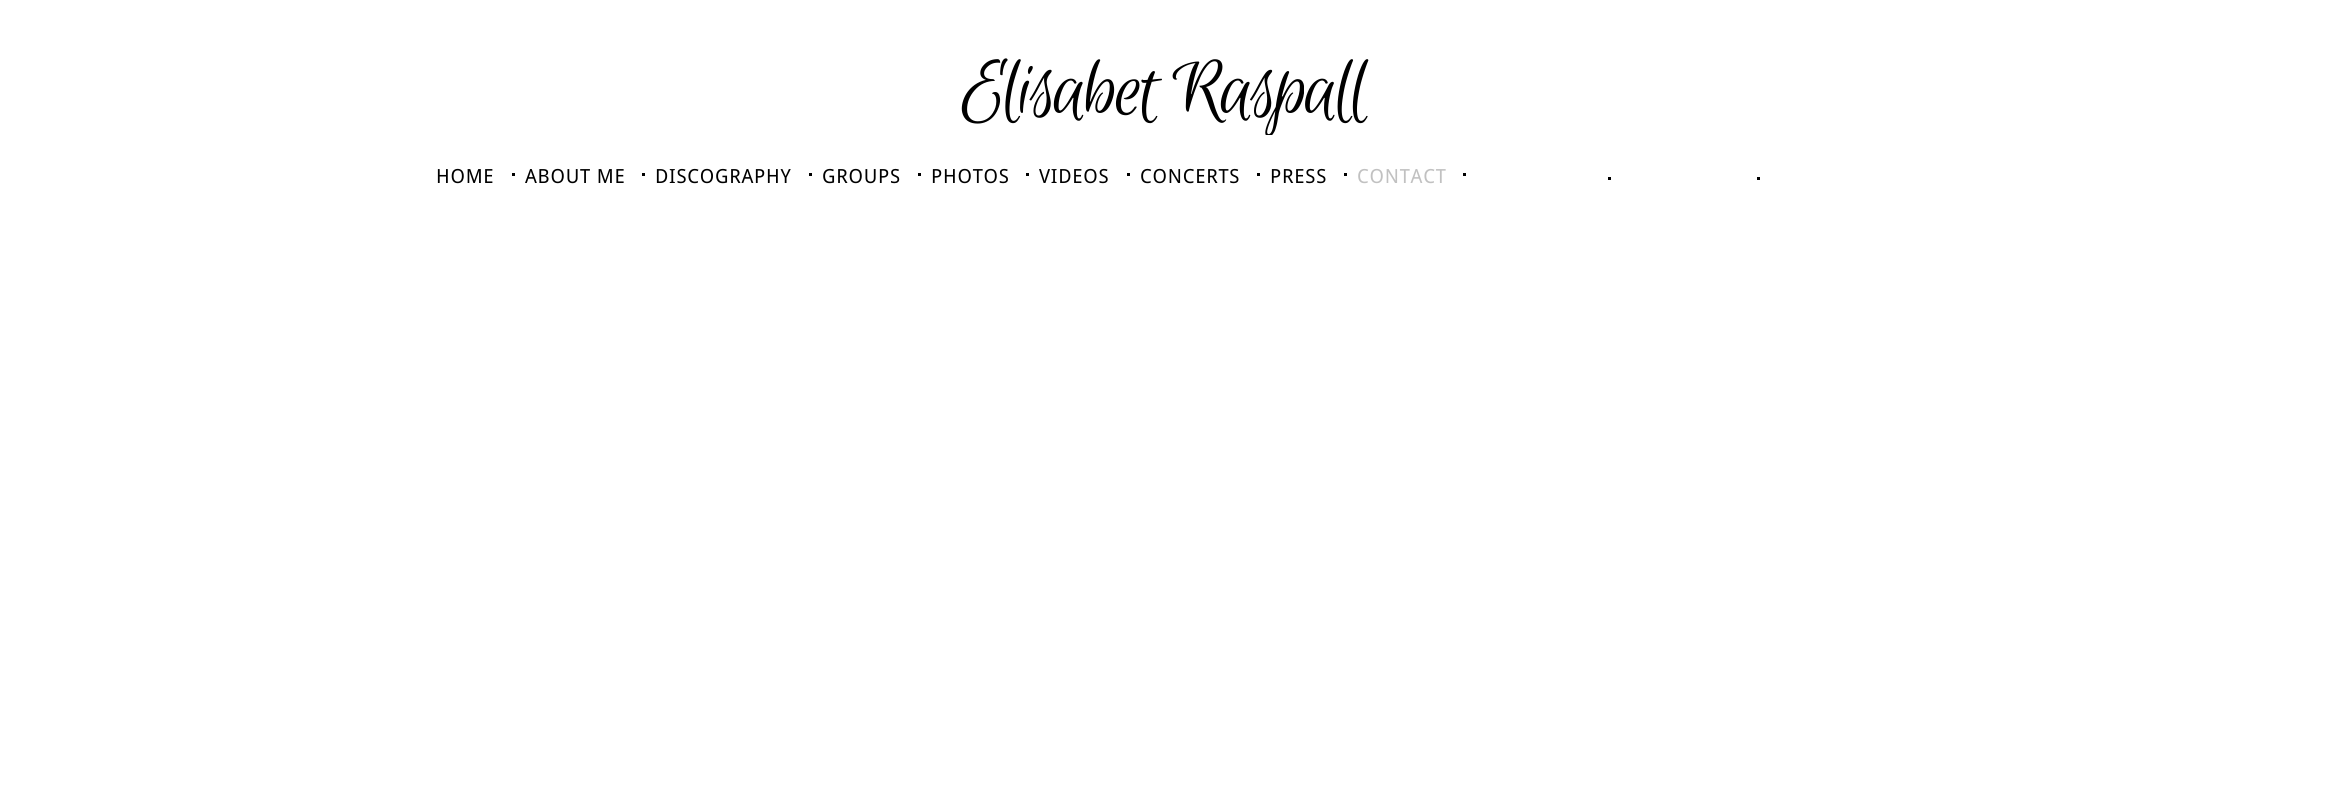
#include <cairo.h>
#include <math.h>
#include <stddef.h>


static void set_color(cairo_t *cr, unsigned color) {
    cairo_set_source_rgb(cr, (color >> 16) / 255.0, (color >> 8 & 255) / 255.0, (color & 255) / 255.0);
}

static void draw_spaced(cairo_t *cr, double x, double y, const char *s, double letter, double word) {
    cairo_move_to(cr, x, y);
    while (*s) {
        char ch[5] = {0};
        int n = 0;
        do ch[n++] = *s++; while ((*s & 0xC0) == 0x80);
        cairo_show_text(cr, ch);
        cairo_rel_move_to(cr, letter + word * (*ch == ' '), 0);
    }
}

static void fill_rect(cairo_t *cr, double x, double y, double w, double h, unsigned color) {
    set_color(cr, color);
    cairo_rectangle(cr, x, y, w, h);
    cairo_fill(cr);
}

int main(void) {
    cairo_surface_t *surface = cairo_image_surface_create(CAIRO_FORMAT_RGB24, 2328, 796);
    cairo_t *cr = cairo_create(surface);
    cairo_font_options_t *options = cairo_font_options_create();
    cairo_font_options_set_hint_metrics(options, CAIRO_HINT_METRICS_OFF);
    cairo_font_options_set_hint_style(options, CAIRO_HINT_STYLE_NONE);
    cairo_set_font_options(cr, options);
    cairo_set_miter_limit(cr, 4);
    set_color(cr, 0xFFFFFF);
    cairo_paint(cr);
    cairo_save(cr);
    cairo_rectangle(cr, 902, 53, 525, 82);
    cairo_clip(cr);
    cairo_select_font_face(cr, "Euphoria Script", CAIRO_FONT_SLANT_NORMAL, CAIRO_FONT_WEIGHT_NORMAL);
    cairo_set_font_size(cr, 87);
    set_color(cr, 0x000000);
    draw_spaced(cr, 962, 113, "Elisabet Raspall", -3, 0);
    cairo_restore(cr);
    cairo_select_font_face(cr, "Droid Sans", CAIRO_FONT_SLANT_NORMAL, CAIRO_FONT_WEIGHT_NORMAL);
    cairo_set_font_size(cr, 19.5);
    set_color(cr, 0x000000);
    draw_spaced(cr, 436, 183, "HOME", 0.75, 0);
    fill_rect(cr, 512, 173, 3, 3, 0x000000);
    draw_spaced(cr, 525, 183, "ABOUT ME", 0.75, 0);
    fill_rect(cr, 642, 173, 3, 3, 0x000000);
    draw_spaced(cr, 655, 183, "DISCOGRAPHY", 0.75, 0);
    fill_rect(cr, 809, 173, 3, 3, 0x000000);
    draw_spaced(cr, 822, 183, "GROUPS", 0.75, 0);
    fill_rect(cr, 918, 173, 3, 3, 0x000000);
    draw_spaced(cr, 931, 183, "PHOTOS", 0.75, 0);
    fill_rect(cr, 1026, 173, 3, 3, 0x000000);
    draw_spaced(cr, 1039, 183, "VIDEOS", 0.75, 0);
    fill_rect(cr, 1127, 173, 3, 3, 0x000000);
    draw_spaced(cr, 1140, 183, "CONCERTS", 0.75, 0);
    fill_rect(cr, 1257, 173, 3, 3, 0x000000);
    draw_spaced(cr, 1270, 183, "PRESS", 0.75, 0);
    fill_rect(cr, 1344, 173, 3, 3, 0x000000);
    set_color(cr, 0xC1C1C1);
    draw_spaced(cr, 1357, 183, "CONTACT", 0.75, 0);
    fill_rect(cr, 1463, 173, 3, 3, 0x000000);
    fill_rect(cr, 1608, 177, 3, 3, 0x000000);
    fill_rect(cr, 1757, 177, 3, 3, 0x000000);
    cairo_surface_write_to_png(surface, "output.png");
    cairo_font_options_destroy(options);
    cairo_destroy(cr);
    cairo_surface_destroy(surface);
    return 0;
}
